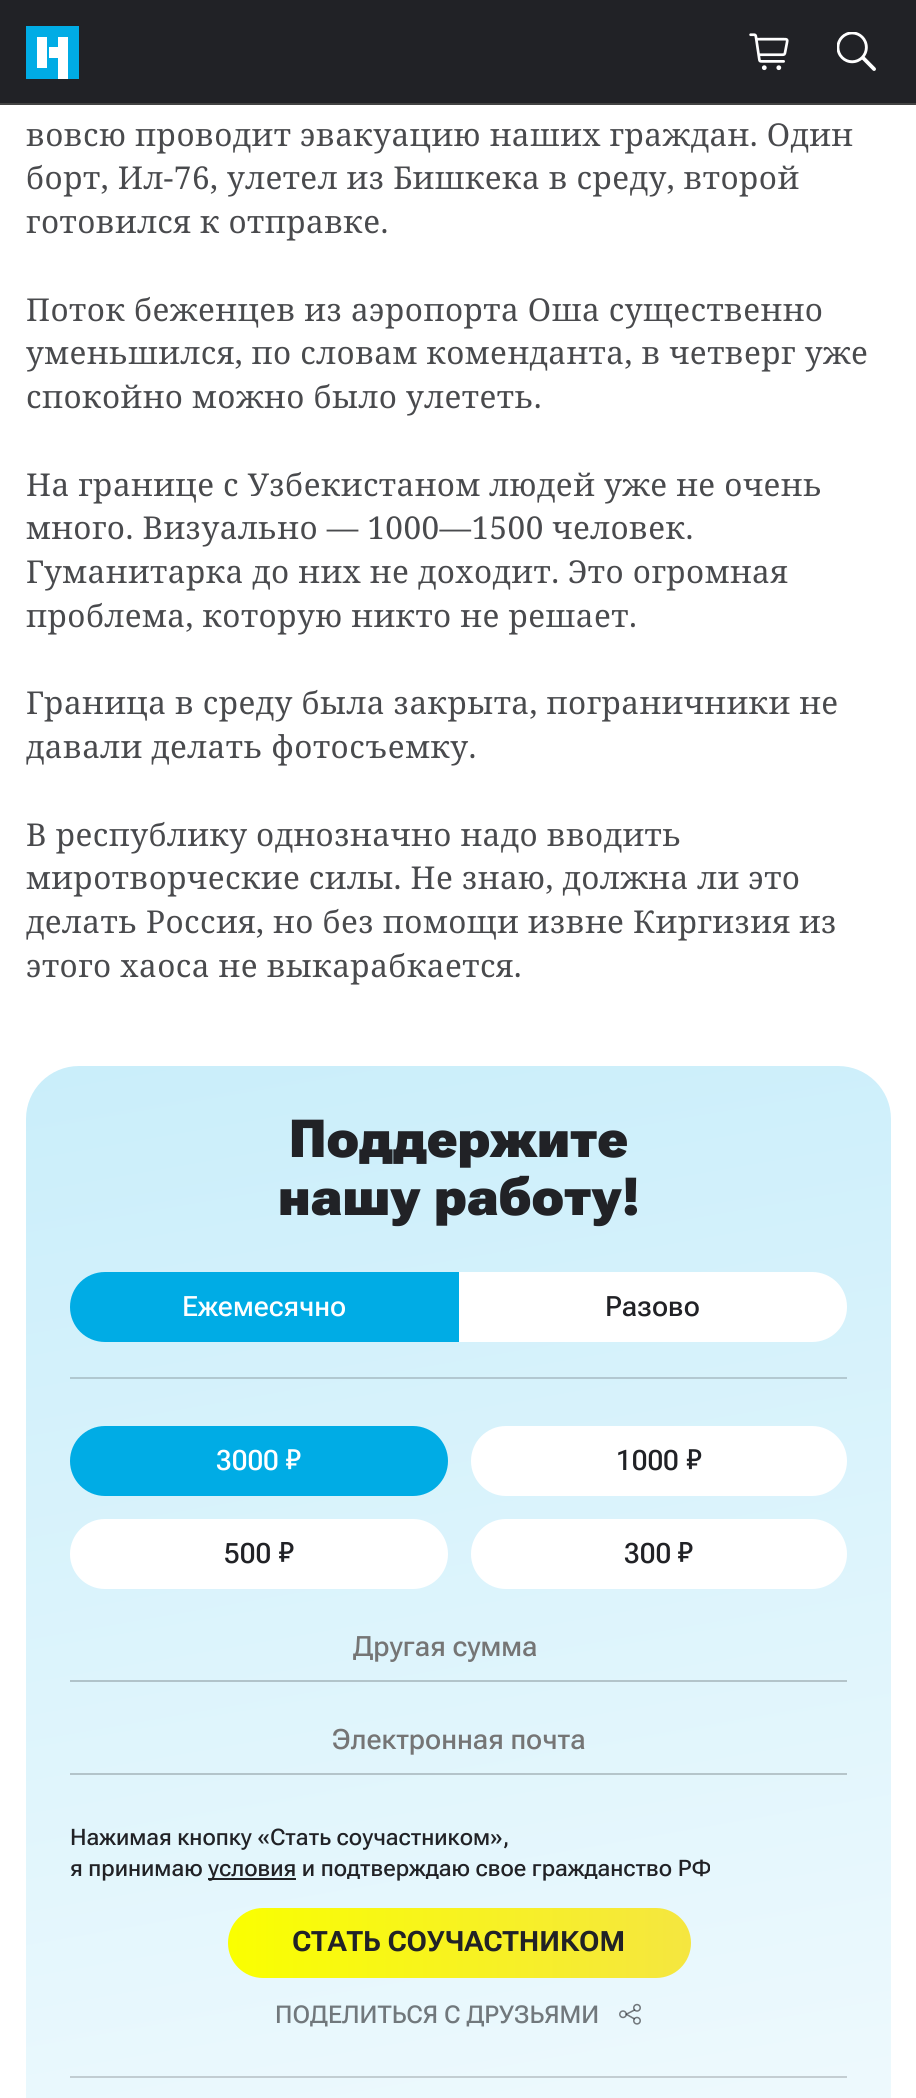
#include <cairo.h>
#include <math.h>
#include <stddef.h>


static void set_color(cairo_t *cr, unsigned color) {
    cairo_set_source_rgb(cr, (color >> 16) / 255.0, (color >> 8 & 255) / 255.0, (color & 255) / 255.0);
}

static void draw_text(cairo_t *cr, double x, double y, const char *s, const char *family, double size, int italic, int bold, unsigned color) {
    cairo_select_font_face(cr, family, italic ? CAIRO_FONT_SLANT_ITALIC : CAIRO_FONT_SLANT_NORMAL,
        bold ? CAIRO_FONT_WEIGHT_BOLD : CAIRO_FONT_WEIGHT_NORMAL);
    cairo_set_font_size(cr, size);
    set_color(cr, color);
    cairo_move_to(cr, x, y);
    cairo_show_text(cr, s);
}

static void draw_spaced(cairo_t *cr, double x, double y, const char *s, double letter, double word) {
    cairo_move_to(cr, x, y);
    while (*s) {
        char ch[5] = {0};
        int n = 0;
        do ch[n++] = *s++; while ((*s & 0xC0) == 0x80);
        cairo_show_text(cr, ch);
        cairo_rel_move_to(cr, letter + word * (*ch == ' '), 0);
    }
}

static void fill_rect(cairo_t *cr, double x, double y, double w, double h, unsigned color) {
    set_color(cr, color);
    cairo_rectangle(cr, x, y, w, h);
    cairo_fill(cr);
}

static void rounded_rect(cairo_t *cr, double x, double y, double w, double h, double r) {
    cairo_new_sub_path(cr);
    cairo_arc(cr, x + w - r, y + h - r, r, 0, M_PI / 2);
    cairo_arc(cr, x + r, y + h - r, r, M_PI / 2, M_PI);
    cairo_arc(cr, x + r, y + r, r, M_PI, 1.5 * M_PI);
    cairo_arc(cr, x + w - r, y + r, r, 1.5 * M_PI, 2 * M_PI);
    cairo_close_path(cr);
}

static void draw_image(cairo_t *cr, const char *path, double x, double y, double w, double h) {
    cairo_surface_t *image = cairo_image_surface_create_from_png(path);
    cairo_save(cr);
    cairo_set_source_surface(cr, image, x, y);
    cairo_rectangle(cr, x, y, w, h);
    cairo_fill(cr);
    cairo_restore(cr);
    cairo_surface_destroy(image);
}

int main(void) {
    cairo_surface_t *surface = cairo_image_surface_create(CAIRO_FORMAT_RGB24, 916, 2098);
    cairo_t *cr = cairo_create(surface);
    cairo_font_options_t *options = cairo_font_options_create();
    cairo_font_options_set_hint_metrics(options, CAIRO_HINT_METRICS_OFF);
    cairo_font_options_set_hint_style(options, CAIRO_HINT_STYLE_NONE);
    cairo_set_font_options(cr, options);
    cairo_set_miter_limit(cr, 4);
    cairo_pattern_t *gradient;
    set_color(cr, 0xFFFFFF);
    cairo_paint(cr);
    fill_rect(cr, 0, 0, 916, 103, 0x212226);
    fill_rect(cr, 0, 103, 916, 2, 0x434343);
    fill_rect(cr, 26, 26, 53, 53, 0x00ACE5);
    set_color(cr, 0xFFFFFF);
    cairo_new_path(cr);
    cairo_move_to(cr, 37, 37);
    cairo_line_to(cr, 47, 37);
    cairo_line_to(cr, 47, 68);
    cairo_line_to(cr, 37, 68);
    cairo_close_path(cr);
    cairo_move_to(cr, 58, 37);
    cairo_line_to(cr, 68, 37);
    cairo_line_to(cr, 68, 79);
    cairo_line_to(cr, 58, 79);
    cairo_close_path(cr);
    cairo_move_to(cr, 49, 47);
    cairo_line_to(cr, 60, 47);
    cairo_line_to(cr, 60, 58);
    cairo_line_to(cr, 49, 58);
    cairo_close_path(cr);
    cairo_fill(cr);
    draw_image(cr, "assets/img1.png", 749, 33, 40, 38);
    draw_image(cr, "assets/img2.png", 837, 32, 39, 39);
    cairo_select_font_face(cr, "Noto Serif", CAIRO_FONT_SLANT_NORMAL, CAIRO_FONT_WEIGHT_NORMAL);
    cairo_set_font_size(cr, 31.5);
    set_color(cr, 0x494A4D);
    draw_spaced(cr, 26, 146, "вовсю проводит эвакуацию наших граждан. Один", 0.45, 0);
    draw_spaced(cr, 26, 189, "борт, Ил-76, улетел из Бишкека в среду, второй", 0.45, 0);
    draw_spaced(cr, 26, 233, "готовился к отправке.", 0.45, 0);
    draw_spaced(cr, 26, 321, "Поток беженцев из аэропорта Оша существенно", 0.45, 0);
    draw_spaced(cr, 26, 364, "уменьшился, по словам коменданта, в четверг уже", 0.45, 0);
    draw_spaced(cr, 26, 408, "спокойно можно было улететь.", 0.45, 0);
    draw_spaced(cr, 26, 496, "На границе с Узбекистаном людей уже не очень", 0.45, 0);
    draw_spaced(cr, 26, 539, "много. Визуально — 1000—1500 человек.", 0.45, 0);
    draw_spaced(cr, 26, 583, "Гуманитарка до них не доходит. Это огромная", 0.45, 0);
    draw_spaced(cr, 26, 627, "проблема, которую никто не решает.", 0.45, 0);
    draw_spaced(cr, 26, 714, "Граница в среду была закрыта, пограничники не", 0.45, 0);
    draw_spaced(cr, 26, 758, "давали делать фотосъемку.", 0.45, 0);
    draw_spaced(cr, 26, 846, "В республику однозначно надо вводить", 0.45, 0);
    draw_spaced(cr, 26, 889, "миротворческие силы. Не знаю, должна ли это", 0.45, 0);
    draw_spaced(cr, 26, 933, "делать Россия, но без помощи извне Киргизия из", 0.45, 0);
    draw_spaced(cr, 26, 977, "этого хаоса не выкарабкается.", 0.45, 0);
    gradient = cairo_pattern_create_linear(18, -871, 641, 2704);
    cairo_pattern_add_color_stop_rgba(gradient, 0, 1, 1, 1, 1);
    cairo_pattern_add_color_stop_rgba(gradient, 0.14, 0.62, 0.878, 0.965, 1);
    cairo_pattern_add_color_stop_rgba(gradient, 1, 1, 1, 1, 1);
    cairo_set_source(cr, gradient);
    cairo_pattern_destroy(gradient);
    rounded_rect(cr, 26, 1066, 865, 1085, 53);
    cairo_fill(cr);
    gradient = cairo_pattern_create_linear(18, -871, 641, 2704);
    cairo_pattern_add_color_stop_rgba(gradient, 0, 0.827, 0.827, 0.831, 1);
    cairo_pattern_add_color_stop_rgba(gradient, 0.14, 0.522, 0.729, 0.8, 1);
    cairo_pattern_add_color_stop_rgba(gradient, 1, 0.827, 0.827, 0.831, 1);
    cairo_set_source(cr, gradient);
    cairo_pattern_destroy(gradient);
    cairo_rectangle(cr, 70, 2076, 777, 2);
    cairo_fill(cr);
    gradient = cairo_pattern_create_linear(18, -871, 641, 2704);
    cairo_pattern_add_color_stop_rgba(gradient, 0, 0.8, 0.8, 0.8, 1);
    cairo_pattern_add_color_stop_rgba(gradient, 0.14, 0.494, 0.702, 0.773, 1);
    cairo_pattern_add_color_stop_rgba(gradient, 1, 0.8, 0.8, 0.8, 1);
    cairo_set_source(cr, gradient);
    cairo_pattern_destroy(gradient);
    cairo_rectangle(cr, 70, 1773, 777, 2);
    cairo_fill(cr);
    cairo_rectangle(cr, 70, 1680, 777, 2);
    cairo_fill(cr);
    gradient = cairo_pattern_create_linear(18, -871, 641, 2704);
    cairo_pattern_add_color_stop_rgba(gradient, 0, 0.827, 0.827, 0.831, 1);
    cairo_pattern_add_color_stop_rgba(gradient, 0.14, 0.522, 0.729, 0.8, 1);
    cairo_pattern_add_color_stop_rgba(gradient, 1, 0.827, 0.827, 0.831, 1);
    cairo_set_source(cr, gradient);
    cairo_pattern_destroy(gradient);
    cairo_rectangle(cr, 70, 1377, 777, 2);
    cairo_fill(cr);
    draw_text(cr, 289, 1157, "Поддержите", "Roboto Flex Black", 52.5, 0, 0, 0x212226);
    draw_text(cr, 278, 1215, "нашу работу!", "Roboto Flex Black", 52.5, 0, 0, 0x212226);
    set_color(cr, 0x00ACE5);
    cairo_new_path(cr);
    cairo_move_to(cr, 105, 1272);
    cairo_line_to(cr, 459, 1272);
    cairo_line_to(cr, 459, 1342);
    cairo_line_to(cr, 105, 1342);
    cairo_curve_to(cr, 85.5, 1342, 70, 1326.5, 70, 1307);
    cairo_curve_to(cr, 70, 1287.5, 85.5, 1272, 105, 1272);
    cairo_close_path(cr);
    cairo_fill(cr);
    draw_text(cr, 182, 1316, "Ежемесячно", "Roboto Flex Medium", 28, 0, 0, 0xFFFFFF);
    cairo_new_path(cr);
    cairo_move_to(cr, 459, 1272);
    cairo_line_to(cr, 812, 1272);
    cairo_curve_to(cr, 831.5, 1272, 847, 1287.5, 847, 1307);
    cairo_curve_to(cr, 847, 1326.5, 831.5, 1342, 812, 1342);
    cairo_line_to(cr, 459, 1342);
    cairo_close_path(cr);
    cairo_fill(cr);
    draw_text(cr, 605, 1316, "Разово", "Roboto Flex Medium", 28, 0, 0, 0x212226);
    set_color(cr, 0x00ACE5);
    rounded_rect(cr, 70, 1426, 378, 70, 35);
    cairo_fill(cr);
    draw_text(cr, 216, 1470, "3000", "Roboto Flex Medium", 28, 0, 0, 0xFFFFFF);
    draw_image(cr, "assets/img3.png", 286, 1449, 15, 21);
    rounded_rect(cr, 471, 1426, 376, 70, 35);
    cairo_fill(cr);
    draw_text(cr, 616, 1470, "1000", "Roboto Flex Medium", 28, 0, 0, 0x212226);
    draw_image(cr, "assets/img4.png", 686, 1449, 16, 21);
    set_color(cr, 0xFFFFFF);
    rounded_rect(cr, 70, 1519, 378, 70, 35);
    cairo_fill(cr);
    draw_text(cr, 224, 1563, "500", "Roboto Flex Medium", 28, 0, 0, 0x212226);
    draw_image(cr, "assets/img5.png", 279, 1542, 15, 20);
    set_color(cr, 0xFFFFFF);
    rounded_rect(cr, 471, 1519, 376, 70, 35);
    cairo_fill(cr);
    draw_text(cr, 624, 1563, "300", "Roboto Flex Medium", 28, 0, 0, 0x212226);
    draw_image(cr, "assets/img5.png", 678, 1542, 15, 20);
    draw_text(cr, 353, 1656, "Другая сумма", "Roboto Flex Medium", 28, 0, 0, 0x757575);
    draw_text(cr, 332, 1749, "Электронная почта", "Roboto Flex Medium", 28, 0, 0, 0x757575);
    draw_text(cr, 70, 1845, "Нажимая кнопку «Стать соучастником»,", "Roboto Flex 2 Medium", 22.75, 0, 0, 0x212226);
    draw_text(cr, 70, 1876, "я принимаю", "Roboto Flex 2 Medium", 22.75, 0, 0, 0x212226);
    fill_rect(cr, 208, 1878, 88, 2, 0x212226);
    draw_text(cr, 208, 1876, "условия и подтверждаю свое гражданство РФ", "Roboto Flex 2 Medium", 22.75, 0, 0, 0x212226);
    gradient = cairo_pattern_create_linear(228, 1943, 691, 1943);
    cairo_pattern_add_color_stop_rgba(gradient, 0, 0.98, 1, 0, 1);
    cairo_pattern_add_color_stop_rgba(gradient, 1, 0.961, 0.902, 0.251, 1);
    cairo_set_source(cr, gradient);
    cairo_pattern_destroy(gradient);
    rounded_rect(cr, 228, 1908, 463, 70, 35);
    cairo_fill(cr);
    draw_text(cr, 292, 1951, "СТАТЬ СОУЧАСТНИКОМ", "Roboto Flex", 28, 0, 1, 0x212226);
    draw_text(cr, 275, 2023, "ПОДЕЛИТЬСЯ С ДРУЗЬЯМИ", "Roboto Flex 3 Medium", 24.5, 0, 0, 0x71787C);
    draw_image(cr, "assets/img6.png", 619, 2003, 22, 22);
    cairo_surface_write_to_png(surface, "output.png");
    cairo_font_options_destroy(options);
    cairo_destroy(cr);
    cairo_surface_destroy(surface);
    return 0;
}
